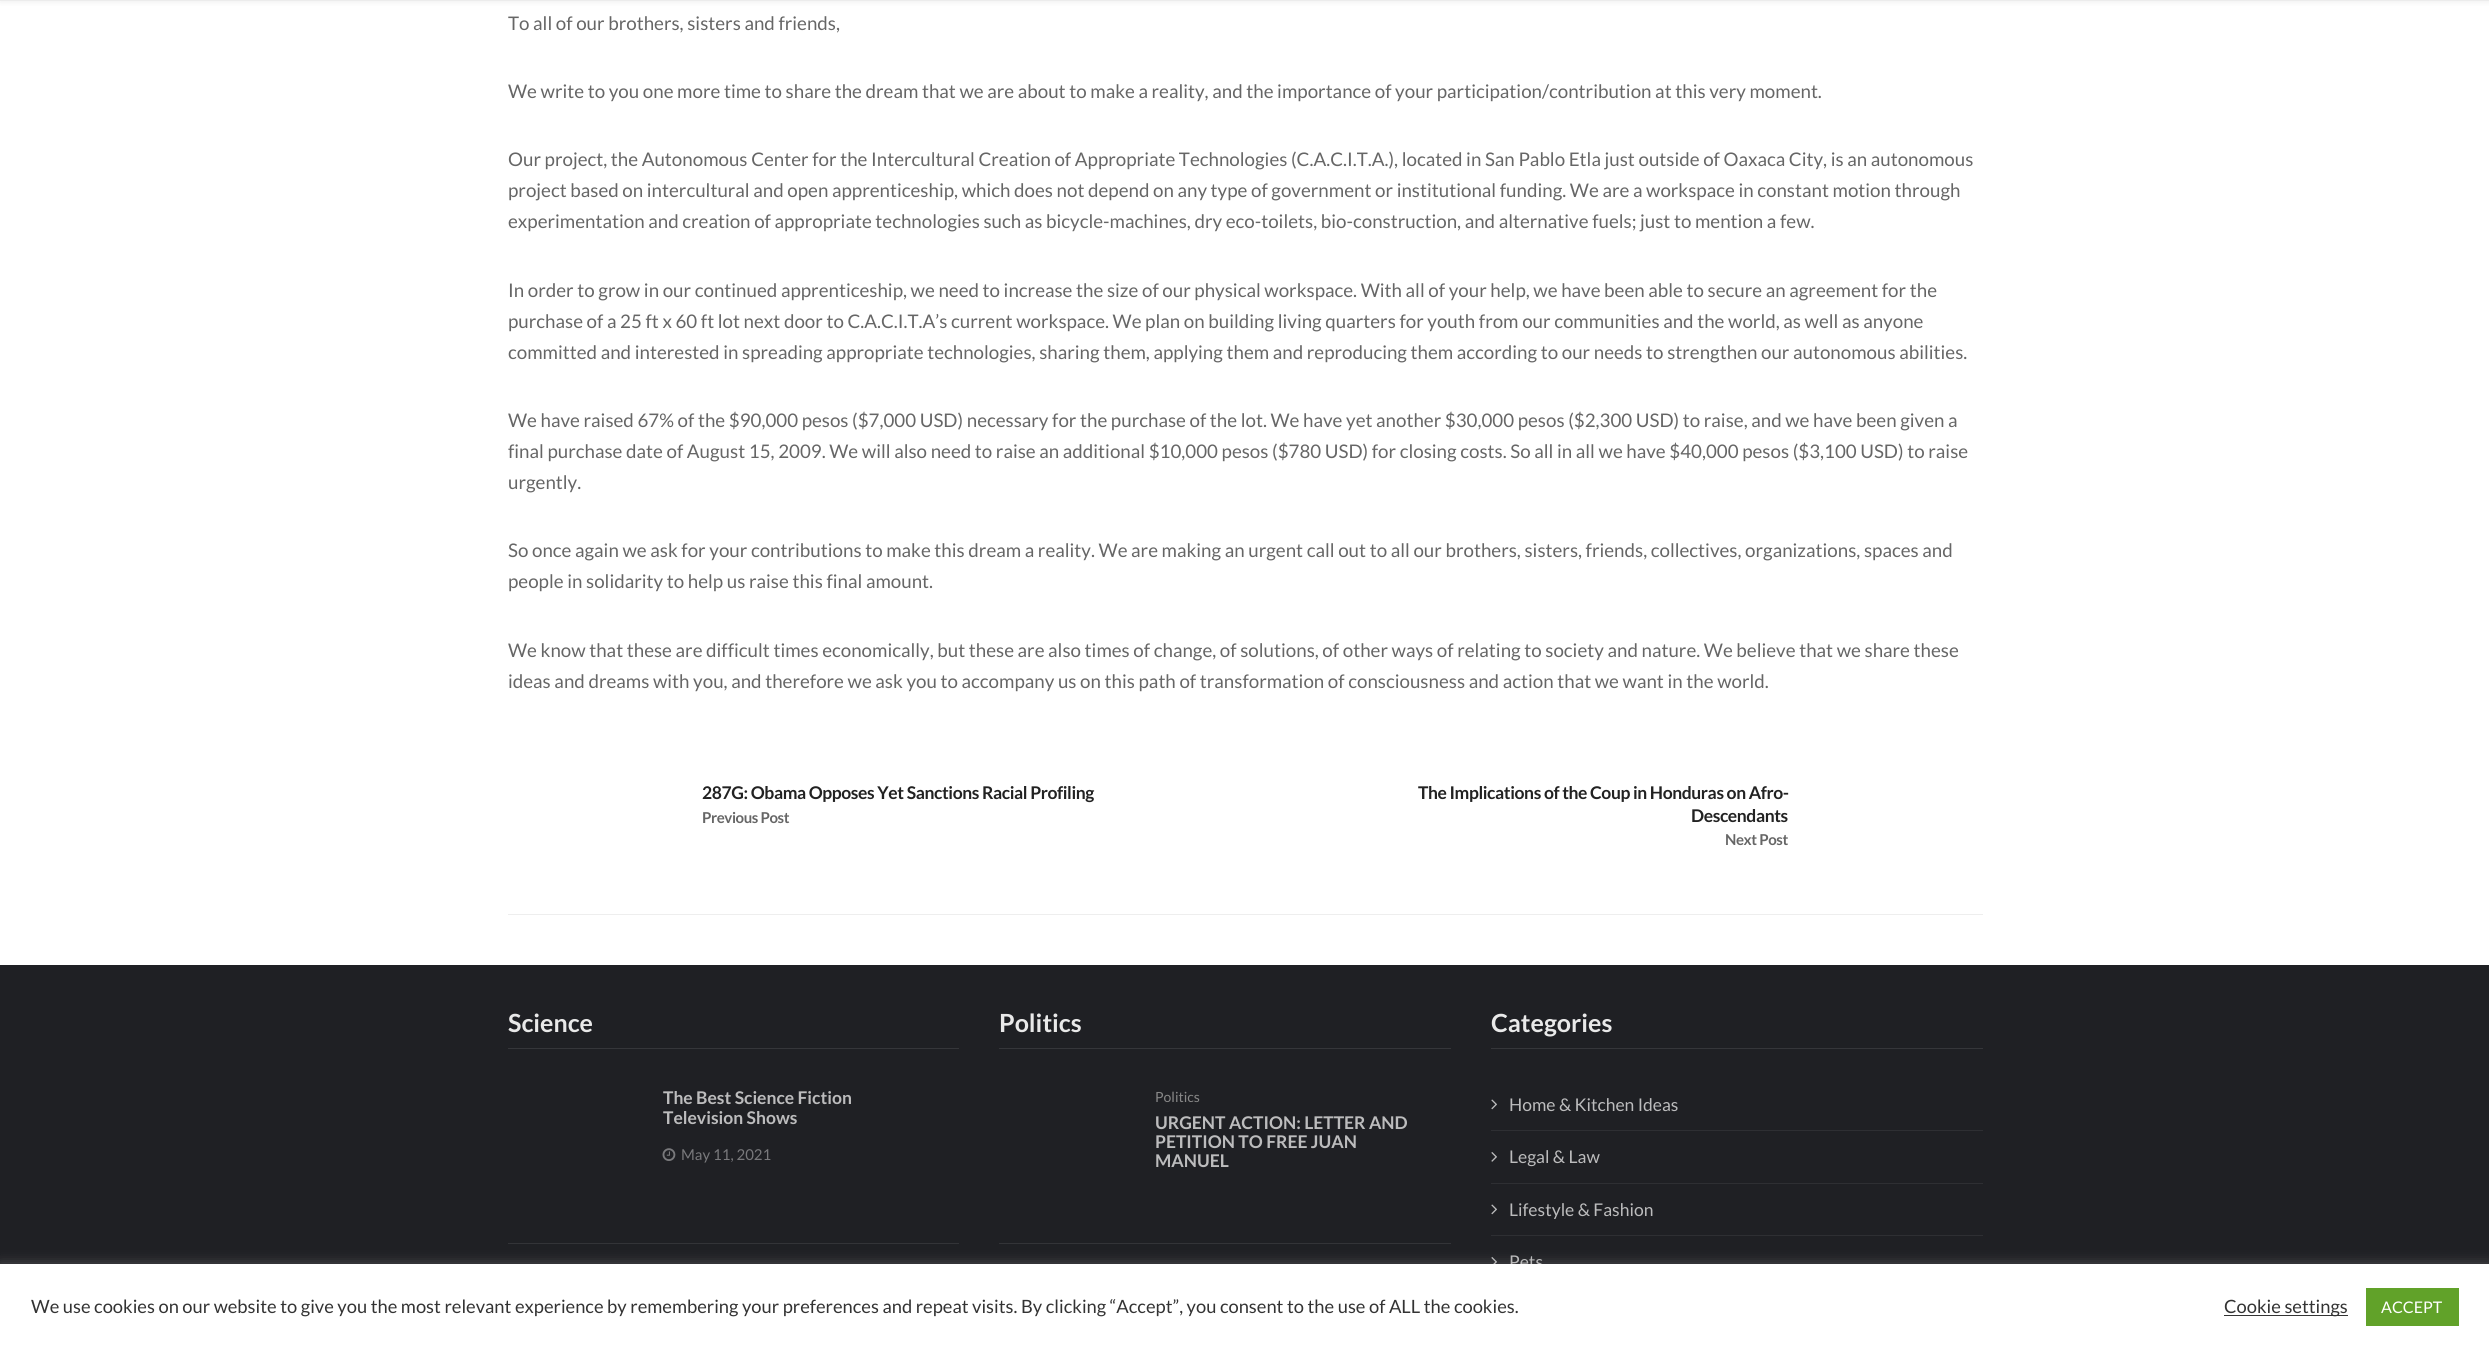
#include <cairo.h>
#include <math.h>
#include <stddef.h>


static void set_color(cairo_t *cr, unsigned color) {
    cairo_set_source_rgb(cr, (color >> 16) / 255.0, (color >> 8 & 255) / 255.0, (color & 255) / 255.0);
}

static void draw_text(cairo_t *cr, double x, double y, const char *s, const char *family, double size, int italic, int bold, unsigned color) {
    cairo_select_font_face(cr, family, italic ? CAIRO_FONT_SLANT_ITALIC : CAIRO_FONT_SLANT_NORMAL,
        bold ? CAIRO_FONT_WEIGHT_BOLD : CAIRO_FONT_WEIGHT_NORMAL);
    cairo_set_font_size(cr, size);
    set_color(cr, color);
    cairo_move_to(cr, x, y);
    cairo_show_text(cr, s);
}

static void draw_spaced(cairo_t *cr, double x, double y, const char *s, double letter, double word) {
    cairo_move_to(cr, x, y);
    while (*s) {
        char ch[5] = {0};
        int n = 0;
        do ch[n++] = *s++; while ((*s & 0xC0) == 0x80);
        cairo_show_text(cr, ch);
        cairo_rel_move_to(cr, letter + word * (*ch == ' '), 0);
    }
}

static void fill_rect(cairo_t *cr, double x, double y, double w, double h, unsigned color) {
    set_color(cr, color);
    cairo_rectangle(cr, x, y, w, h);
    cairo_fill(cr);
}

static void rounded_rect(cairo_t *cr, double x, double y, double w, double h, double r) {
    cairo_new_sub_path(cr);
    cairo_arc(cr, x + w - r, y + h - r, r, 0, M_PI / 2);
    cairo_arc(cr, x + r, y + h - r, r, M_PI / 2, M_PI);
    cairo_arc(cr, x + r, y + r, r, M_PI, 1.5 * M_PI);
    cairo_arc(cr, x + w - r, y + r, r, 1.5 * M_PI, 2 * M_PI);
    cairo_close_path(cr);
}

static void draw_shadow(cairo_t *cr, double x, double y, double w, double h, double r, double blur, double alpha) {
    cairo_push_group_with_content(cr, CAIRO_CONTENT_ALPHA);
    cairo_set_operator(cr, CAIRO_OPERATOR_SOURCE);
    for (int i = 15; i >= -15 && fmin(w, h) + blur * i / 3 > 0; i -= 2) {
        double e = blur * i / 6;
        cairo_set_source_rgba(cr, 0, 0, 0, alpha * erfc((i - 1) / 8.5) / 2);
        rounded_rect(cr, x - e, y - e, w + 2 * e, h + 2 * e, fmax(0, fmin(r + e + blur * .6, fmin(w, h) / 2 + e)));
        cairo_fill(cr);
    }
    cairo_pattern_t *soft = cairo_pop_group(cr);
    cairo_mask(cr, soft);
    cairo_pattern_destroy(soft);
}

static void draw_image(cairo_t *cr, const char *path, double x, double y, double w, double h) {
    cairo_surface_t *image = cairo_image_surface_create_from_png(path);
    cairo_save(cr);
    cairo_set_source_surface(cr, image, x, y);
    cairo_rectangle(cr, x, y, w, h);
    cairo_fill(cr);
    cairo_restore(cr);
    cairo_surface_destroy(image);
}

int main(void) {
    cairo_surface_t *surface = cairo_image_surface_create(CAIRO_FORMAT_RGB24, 2489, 1349);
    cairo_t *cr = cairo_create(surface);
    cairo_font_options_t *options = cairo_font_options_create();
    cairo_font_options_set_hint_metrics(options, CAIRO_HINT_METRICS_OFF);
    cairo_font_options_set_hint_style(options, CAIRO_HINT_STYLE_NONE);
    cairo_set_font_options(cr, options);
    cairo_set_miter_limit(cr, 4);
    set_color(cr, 0xFFFFFF);
    cairo_paint(cr);
    set_color(cr, 0x000000);
    draw_shadow(cr, 0, -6, 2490, 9, 0, 2, 0.05);
    fill_rect(cr, 0, 0, 2489, 1, 0xECECEC);
    draw_text(cr, 508, 30, "To all of our brothers, sisters and friends,", "Lato", 18.75, 0, 0, 0x666666);
    draw_text(cr, 508, 98, "We write to you one more time to share the dream that we are about to make a reality, and the importance of your participation/contribution at this very moment.", "Lato", 18.75, 0, 0, 0x666666);
    draw_text(cr, 508, 166, "Our project, the Autonomous Center for the Intercultural Creation of Appropriate Technologies (C.A.C.I.T.A.), located in San Pablo Etla just outside of Oaxaca City, is an autonomous", "Lato", 18.75, 0, 0, 0x666666);
    draw_text(cr, 508, 197, "project based on intercultural and open apprenticeship, which does not depend on any type of government or institutional funding. We are a workspace in constant motion through", "Lato", 18.75, 0, 0, 0x666666);
    draw_text(cr, 508, 228, "experimentation and creation of appropriate technologies such as bicycle-machines, dry eco-toilets, bio-construction, and alternative fuels; just to mention a few.", "Lato", 18.75, 0, 0, 0x666666);
    draw_text(cr, 508, 297, "In order to grow in our continued apprenticeship, we need to increase the size of our physical workspace. With all of your help, we have been able to secure an agreement for the", "Lato", 18.75, 0, 0, 0x666666);
    draw_text(cr, 508, 328, "purchase of a 25 ft x 60 ft lot next door to C.A.C.I.T.A’s current workspace. We plan on building living quarters for youth from our communities and the world, as well as anyone", "Lato", 18.75, 0, 0, 0x666666);
    draw_text(cr, 508, 359, "committed and interested in spreading appropriate technologies, sharing them, applying them and reproducing them according to our needs to strengthen our autonomous abilities.", "Lato", 18.75, 0, 0, 0x666666);
    draw_text(cr, 508, 427, "We have raised 67% of the $90,000 pesos ($7,000 USD) necessary for the purchase of the lot. We have yet another $30,000 pesos ($2,300 USD) to raise, and we have been given a", "Lato", 18.75, 0, 0, 0x666666);
    draw_text(cr, 508, 458, "final purchase date of August 15, 2009. We will also need to raise an additional $10,000 pesos ($780 USD) for closing costs. So all in all we have $40,000 pesos ($3,100 USD) to raise", "Lato", 18.75, 0, 0, 0x666666);
    draw_text(cr, 508, 489, "urgently.", "Lato", 18.75, 0, 0, 0x666666);
    draw_text(cr, 508, 557, "So once again we ask for your contributions to make this dream a reality. We are making an urgent call out to all our brothers, sisters, friends, collectives, organizations, spaces and", "Lato", 18.75, 0, 0, 0x666666);
    draw_text(cr, 508, 588, "people in solidarity to help us raise this final amount.", "Lato", 18.75, 0, 0, 0x666666);
    draw_text(cr, 508, 657, "We know that these are difficult times economically, but these are also times of change, of solutions, of other ways of relating to society and nature. We believe that we share these", "Lato", 18.75, 0, 0, 0x666666);
    draw_text(cr, 508, 688, "ideas and dreams with you, and therefore we ask you to accompany us on this path of transformation of consciousness and action that we want in the world.", "Lato", 18.75, 0, 0, 0x666666);
    fill_rect(cr, 508, 914, 1475, 1, 0xEEEEEE);
    cairo_select_font_face(cr, "Lato", CAIRO_FONT_SLANT_NORMAL, CAIRO_FONT_WEIGHT_BOLD);
    cairo_set_font_size(cr, 17.5);
    set_color(cr, 0x222222);
    draw_spaced(cr, 702, 799, "287G: Obama Opposes Yet Sanctions Racial Profiling", -0.4, 0);
    cairo_set_font_size(cr, 15);
    set_color(cr, 0x666666);
    draw_spaced(cr, 702, 823, "Previous Post", -0.4, 0);
    cairo_set_font_size(cr, 17.5);
    set_color(cr, 0x222222);
    draw_spaced(cr, 1418, 799, "The Implications of the Coup in Honduras on Afro-", -0.4, 0);
    draw_spaced(cr, 1691, 822, "Descendants", -0.4, 0);
    cairo_set_font_size(cr, 15);
    set_color(cr, 0x666666);
    draw_spaced(cr, 1725, 845, "Next Post", -0.4, 0);
    fill_rect(cr, 0, 965, 2489, 299, 0x1F2024);
    draw_text(cr, 508, 1032, "Science", "Lato", 25, 0, 1, 0xE9E9E9);
    fill_rect(cr, 508, 1048, 451, 1, 0x35363A);
    fill_rect(cr, 508, 1243, 451, 1, 0x333438);
    draw_text(cr, 663, 1104, "The Best Science Fiction", "Lato", 17.5, 0, 1, 0xBCBCBD);
    draw_text(cr, 663, 1124, "Television Shows", "Lato", 17.5, 0, 1, 0xBCBCBD);
    draw_image(cr, "assets/img1.png", 662, 1148, 14, 13);
    draw_text(cr, 681, 1160, "May 11, 2021", "Lato", 15, 0, 0, 0x79797C);
    draw_text(cr, 999, 1032, "Politics", "Lato", 25, 0, 1, 0xE9E9E9);
    fill_rect(cr, 999, 1048, 452, 1, 0x35363A);
    fill_rect(cr, 999, 1243, 452, 1, 0x333438);
    draw_text(cr, 1155, 1102, "Politics", "Lato", 14, 0, 0, 0x888888);
    draw_text(cr, 1155, 1129, "URGENT ACTION: LETTER AND", "Lato", 17.5, 0, 1, 0xBCBCBD);
    draw_text(cr, 1155, 1148, "PETITION TO FREE JUAN", "Lato", 17.5, 0, 1, 0xBCBCBD);
    draw_text(cr, 1155, 1167, "MANUEL", "Lato", 17.5, 0, 1, 0xBCBCBD);
    draw_text(cr, 1491, 1032, "Categories", "Lato", 25, 0, 1, 0xE9E9E9);
    fill_rect(cr, 1491, 1048, 492, 1, 0x35363A);
    fill_rect(cr, 1491, 1130, 492, 1, 0x2E2F33);
    draw_image(cr, "assets/img2.png", 1491, 1099, 6, 11);
    draw_text(cr, 1509, 1111, "Home & Kitchen Ideas", "Lato", 17.5, 0, 0, 0xBCBCBD);
    fill_rect(cr, 1491, 1183, 492, 1, 0x2E2F33);
    draw_image(cr, "assets/img3.png", 1491, 1152, 6, 10);
    draw_text(cr, 1509, 1163, "Legal & Law", "Lato", 17.5, 0, 0, 0xBCBCBD);
    fill_rect(cr, 1491, 1235, 492, 1, 0x2E2F33);
    draw_image(cr, "assets/img2.png", 1491, 1204, 6, 11);
    draw_text(cr, 1509, 1216, "Lifestyle & Fashion", "Lato", 17.5, 0, 0, 0xBCBCBD);
    draw_image(cr, "assets/img4.png", 1491, 1257, 6, 7);
    draw_text(cr, 1509, 1268, "Pets", "Lato", 17.5, 0, 0, 0xBCBCBD);
    set_color(cr, 0xACABAB);
    draw_shadow(cr, 0, 1263, 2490, 86, 0, 6, 0.3);
    fill_rect(cr, 0, 1264, 2489, 85, 0xFFFFFF);
    draw_text(cr, 31, 1313, "We use cookies on our website to give you the most relevant experience by remembering your preferences and repeat visits. By clicking “Accept”, you consent to the use of ALL the cookies.", "Lato", 18.33, 0, 0, 0x333333);
    fill_rect(cr, 2224, 1315, 124, 1, 0x333333);
    draw_text(cr, 2224, 1313, "Cookie settings", "Lato", 18.33, 0, 0, 0x333333);
    fill_rect(cr, 2366, 1288, 93, 38, 0x61A229);
    draw_text(cr, 2381, 1313, "ACCEPT", "Lato", 16, 0, 0, 0xFFFFFF);
    cairo_surface_write_to_png(surface, "output.png");
    cairo_font_options_destroy(options);
    cairo_destroy(cr);
    cairo_surface_destroy(surface);
    return 0;
}
